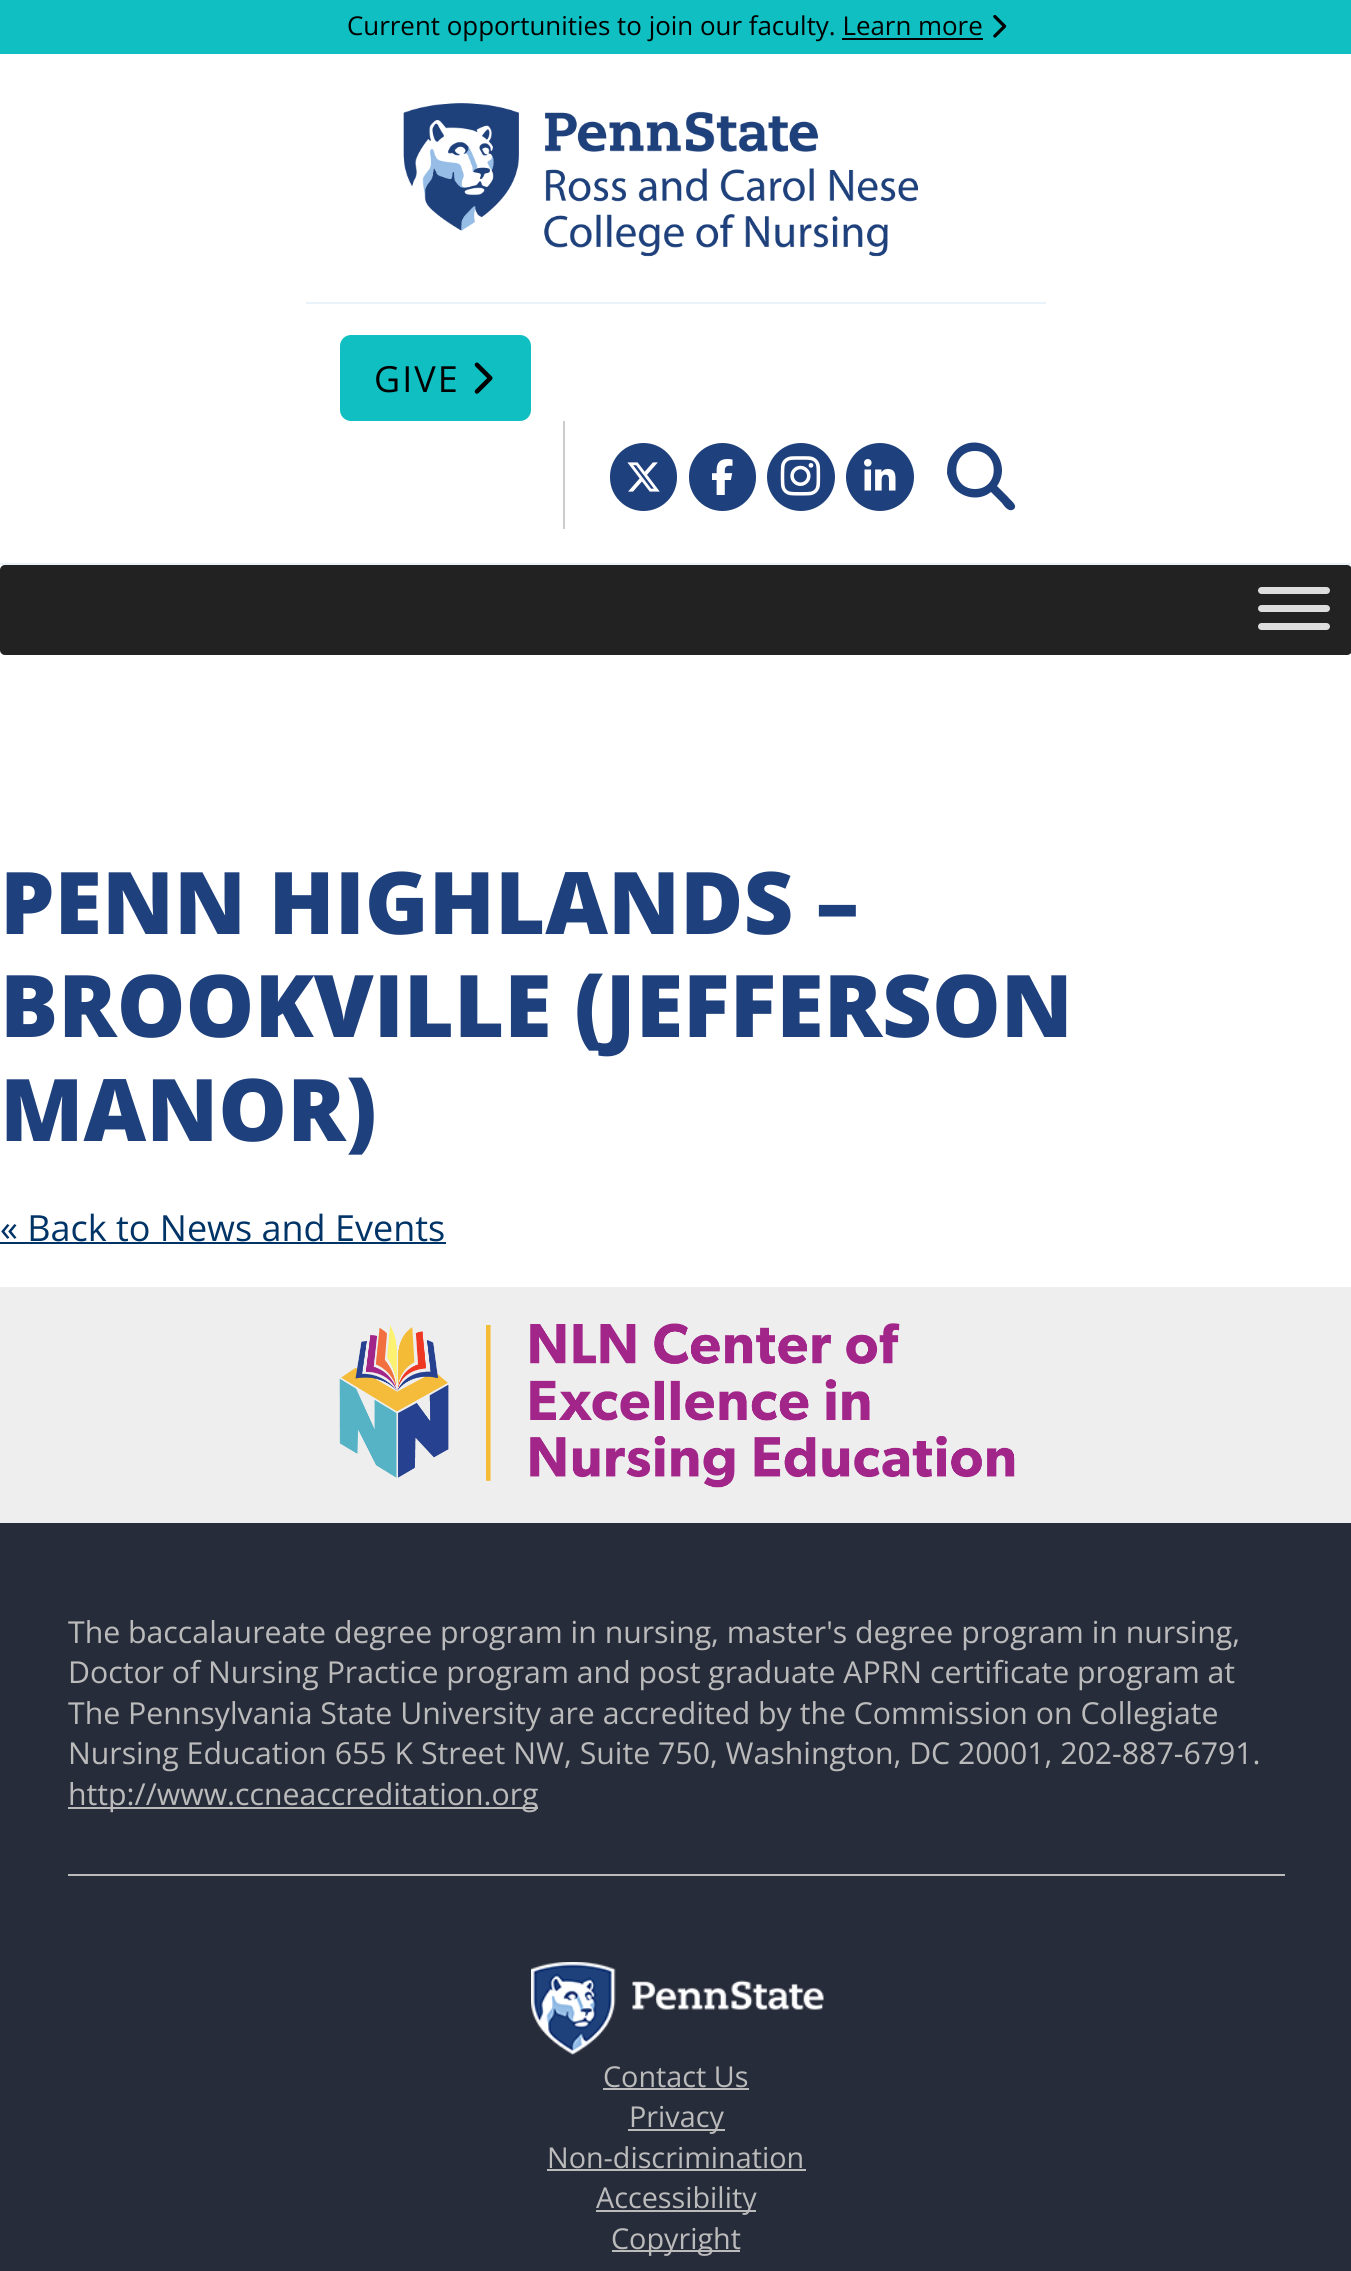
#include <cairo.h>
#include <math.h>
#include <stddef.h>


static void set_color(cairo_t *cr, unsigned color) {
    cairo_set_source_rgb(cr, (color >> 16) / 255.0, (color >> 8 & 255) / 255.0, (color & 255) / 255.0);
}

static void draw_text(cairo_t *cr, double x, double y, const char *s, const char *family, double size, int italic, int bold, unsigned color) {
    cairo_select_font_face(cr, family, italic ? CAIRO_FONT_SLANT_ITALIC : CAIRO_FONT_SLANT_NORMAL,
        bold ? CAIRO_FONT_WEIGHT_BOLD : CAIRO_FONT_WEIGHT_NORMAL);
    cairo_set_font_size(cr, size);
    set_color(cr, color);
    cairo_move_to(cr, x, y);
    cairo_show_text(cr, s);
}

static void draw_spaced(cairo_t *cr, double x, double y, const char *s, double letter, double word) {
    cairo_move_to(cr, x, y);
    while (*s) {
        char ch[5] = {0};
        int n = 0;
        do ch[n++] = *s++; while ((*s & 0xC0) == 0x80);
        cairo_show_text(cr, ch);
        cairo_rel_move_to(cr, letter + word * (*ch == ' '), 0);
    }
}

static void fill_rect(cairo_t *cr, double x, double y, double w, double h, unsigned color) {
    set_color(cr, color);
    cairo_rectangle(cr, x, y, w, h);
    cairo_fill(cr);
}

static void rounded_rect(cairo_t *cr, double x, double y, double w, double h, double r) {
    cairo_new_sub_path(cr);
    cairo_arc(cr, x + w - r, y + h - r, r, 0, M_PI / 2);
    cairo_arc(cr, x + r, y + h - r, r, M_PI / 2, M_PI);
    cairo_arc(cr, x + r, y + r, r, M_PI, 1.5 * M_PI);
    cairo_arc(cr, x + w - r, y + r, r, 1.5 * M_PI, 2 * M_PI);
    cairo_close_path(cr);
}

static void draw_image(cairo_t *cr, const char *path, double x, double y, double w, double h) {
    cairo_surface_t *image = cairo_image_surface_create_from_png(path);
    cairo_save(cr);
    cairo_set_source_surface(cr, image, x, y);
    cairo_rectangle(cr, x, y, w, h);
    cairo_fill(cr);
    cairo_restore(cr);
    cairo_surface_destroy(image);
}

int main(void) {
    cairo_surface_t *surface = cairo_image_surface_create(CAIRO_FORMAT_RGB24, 1351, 2271);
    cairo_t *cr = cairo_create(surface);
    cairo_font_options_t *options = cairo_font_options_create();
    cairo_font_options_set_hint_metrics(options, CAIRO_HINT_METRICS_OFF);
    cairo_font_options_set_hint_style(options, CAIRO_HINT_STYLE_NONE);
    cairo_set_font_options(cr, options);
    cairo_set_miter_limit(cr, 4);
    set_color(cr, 0xFFFFFF);
    cairo_paint(cr);
    fill_rect(cr, 0, 0, 1351, 54, 0x0FBFC1);
    draw_text(cr, 347, 35, "Current opportunities to join our faculty. Learn more", "Open Sans", 25.9, 0, 0, 0x000000);
    draw_image(cr, "assets/img1.png", 993, 15, 14, 23);
    fill_rect(cr, 842, 38, 141, 2, 0x000000);
    draw_image(cr, "assets/img2.png", 403, 103, 515, 154);
    fill_rect(cr, 306, 302, 740, 2, 0xEAF2FA);
    set_color(cr, 0x0FBFC1);
    rounded_rect(cr, 340, 335, 191, 86, 11);
    cairo_fill(cr);
    cairo_set_font_size(cr, 36);
    set_color(cr, 0x000000);
    draw_spaced(cr, 374, 392, "GIVE", 2, 0);
    draw_image(cr, "assets/img3.png", 474, 362, 19, 32);
    fill_rect(cr, 563, 421, 2, 108, 0xCCCCCC);
    set_color(cr, 0x1E407C);
    rounded_rect(cr, 610, 443, 67, 68, 33.5);
    cairo_fill(cr);
    draw_image(cr, "assets/img4.png", 627, 462, 33, 30);
    rounded_rect(cr, 689, 443, 67, 68, 33.5);
    cairo_fill(cr);
    draw_image(cr, "assets/img5.png", 712, 459, 21, 36);
    cairo_arc(cr, 801, 477, 34, 0, 2 * M_PI);
    cairo_fill(cr);
    draw_image(cr, "assets/img6.png", 780, 456, 41, 40);
    cairo_arc(cr, 880, 477, 34, 0, 2 * M_PI);
    cairo_fill(cr);
    draw_image(cr, "assets/img7.png", 864, 459, 32, 32);
    cairo_new_path(cr);
    cairo_move_to(cr, 1002, 470);
    cairo_curve_to(cr, 1002, 476, 1000, 482, 997, 486);
    cairo_line_to(cr, 1008, 497);
    cairo_curve_to(cr, 1010, 500, 1018, 505, 1014, 509);
    cairo_curve_to(cr, 1009, 513, 1004, 506, 1002, 503);
    cairo_line_to(cr, 991, 492);
    cairo_curve_to(cr, 981, 500, 967, 499, 957, 491);
    cairo_curve_to(cr, 952, 487, 948, 480, 947, 473);
    cairo_curve_to(cr, 947, 467, 948, 460, 952, 455);
    cairo_curve_to(cr, 967, 432, 1001, 443, 1002, 470);
    cairo_close_path(cr);
    cairo_move_to(cr, 975, 489);
    cairo_curve_to(cr, 1000, 489, 1000, 451, 975, 451);
    cairo_curve_to(cr, 950, 451, 950, 489, 975, 489);
    cairo_close_path(cr);
    cairo_fill(cr);
    fill_rect(cr, 0, 563, 1351, 2, 0xEAF2FA);
    set_color(cr, 0x222222);
    rounded_rect(cr, 0, 565, 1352, 90, 5);
    cairo_fill(cr);
    set_color(cr, 0xDDDDDD);
    rounded_rect(cr, 1258, 587, 72, 7, 3.5);
    cairo_fill(cr);
    rounded_rect(cr, 1258, 605, 72, 7, 3.5);
    cairo_fill(cr);
    rounded_rect(cr, 1258, 623, 72, 7, 3.5);
    cairo_fill(cr);
    draw_text(cr, 0, 934, "PENN HIGHLANDS –", "Open Sans ExtraBold", 86.4, 0, 0, 0x1E407C);
    draw_text(cr, 0, 1037, "BROOKVILLE (JEFFERSON", "Open Sans ExtraBold", 86.4, 0, 0, 0x1E407C);
    draw_text(cr, 0, 1141, "MANOR)", "Open Sans ExtraBold", 86.4, 0, 0, 0x1E407C);
    draw_text(cr, 0, 1241, "« Back to News and Events", "Open Sans", 36, 0, 0, 0x003366);
    fill_rect(cr, 0, 1242, 446, 2, 0x003366);
    fill_rect(cr, 0, 1287, 1351, 236, 0xEEEEEE);
    draw_image(cr, "assets/img8.png", 339, 1323, 676, 165);
    fill_rect(cr, 0, 1523, 1351, 748, 0x272C3A);
    fill_rect(cr, 68, 1874, 1217, 2, 0xBBBBBB);
    draw_text(cr, 68, 1643, "The baccalaureate degree program in nursing, master's degree program in nursing,", "Open Sans", 30.25, 0, 0, 0xBBBBBB);
    draw_text(cr, 68, 1683, "Doctor of Nursing Practice program and post graduate APRN certificate program at", "Open Sans", 30.25, 0, 0, 0xBBBBBB);
    draw_text(cr, 68, 1724, "The Pennsylvania State University are accredited by the Commission on Collegiate", "Open Sans", 30.25, 0, 0, 0xBBBBBB);
    draw_text(cr, 68, 1764, "Nursing Education 655 K Street NW, Suite 750, Washington, DC 20001, 202-887-6791.", "Open Sans", 30.25, 0, 0, 0xBBBBBB);
    fill_rect(cr, 68, 1807, 470, 2, 0xBBBBBB);
    draw_text(cr, 68, 1805, "http://www.ccneaccreditation.org", "Open Sans", 30.25, 0, 0, 0xBBBBBB);
    draw_image(cr, "assets/img9.png", 531, 1962, 293, 93);
    draw_text(cr, 603, 2087, "Contact Us", "Open Sans", 28.75, 0, 0, 0xBBBBBB);
    fill_rect(cr, 603, 2088, 146, 2, 0xBBBBBB);
    fill_rect(cr, 628, 2129, 97, 2, 0xBBBBBB);
    draw_text(cr, 629, 2127, "Privacy", "Open Sans", 28.75, 0, 0, 0xBBBBBB);
    draw_text(cr, 547, 2168, "Non-discrimination", "Open Sans", 28.75, 0, 0, 0xBBBBBB);
    fill_rect(cr, 547, 2169, 259, 2, 0xBBBBBB);
    fill_rect(cr, 596, 2210, 160, 2, 0xBBBBBB);
    draw_text(cr, 596, 2208, "Accessibility", "Open Sans", 28.75, 0, 0, 0xBBBBBB);
    fill_rect(cr, 612, 2250, 128, 2, 0xBBBBBB);
    draw_text(cr, 611, 2249, "Copyright", "Open Sans", 28.75, 0, 0, 0xBBBBBB);
    cairo_surface_write_to_png(surface, "output.png");
    cairo_font_options_destroy(options);
    cairo_destroy(cr);
    cairo_surface_destroy(surface);
    return 0;
}
